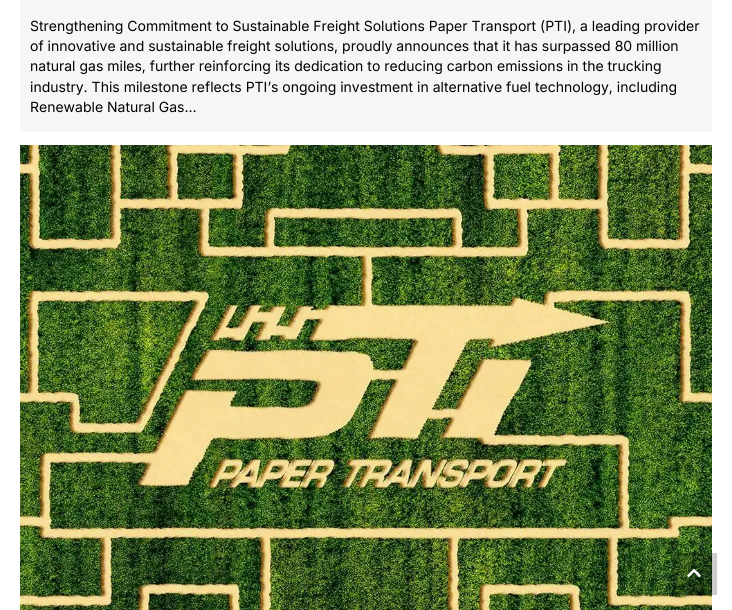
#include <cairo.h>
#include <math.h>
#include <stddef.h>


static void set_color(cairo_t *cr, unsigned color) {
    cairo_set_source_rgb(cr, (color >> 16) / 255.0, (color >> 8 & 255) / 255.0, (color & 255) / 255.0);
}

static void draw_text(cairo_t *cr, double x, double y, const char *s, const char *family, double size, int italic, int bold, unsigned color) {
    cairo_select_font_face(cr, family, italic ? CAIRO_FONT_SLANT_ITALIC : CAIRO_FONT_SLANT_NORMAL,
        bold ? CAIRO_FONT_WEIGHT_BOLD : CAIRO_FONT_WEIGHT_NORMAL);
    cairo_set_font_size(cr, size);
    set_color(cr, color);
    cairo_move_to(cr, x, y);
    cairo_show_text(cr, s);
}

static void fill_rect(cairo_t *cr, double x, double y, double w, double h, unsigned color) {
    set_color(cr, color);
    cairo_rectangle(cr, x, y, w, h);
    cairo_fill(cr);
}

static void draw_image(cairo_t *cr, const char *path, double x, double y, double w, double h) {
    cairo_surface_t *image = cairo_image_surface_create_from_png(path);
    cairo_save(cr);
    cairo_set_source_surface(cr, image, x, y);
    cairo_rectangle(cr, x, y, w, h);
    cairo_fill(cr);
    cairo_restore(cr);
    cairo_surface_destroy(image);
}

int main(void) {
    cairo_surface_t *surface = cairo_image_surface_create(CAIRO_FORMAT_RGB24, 732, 610);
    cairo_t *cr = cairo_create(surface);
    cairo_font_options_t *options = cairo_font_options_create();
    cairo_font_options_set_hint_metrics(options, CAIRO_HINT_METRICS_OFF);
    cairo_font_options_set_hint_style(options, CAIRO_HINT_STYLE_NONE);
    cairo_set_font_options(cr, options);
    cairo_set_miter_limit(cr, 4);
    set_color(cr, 0xFFFFFF);
    cairo_paint(cr);
    fill_rect(cr, 20, 0, 692, 132, 0xF7F6F7);
    draw_text(cr, 30, 31, "Strengthening Commitment to Sustainable Freight Solutions Paper Transport (PTI), a leading provider", "Inter", 14, 0, 0, 0x000000);
    draw_text(cr, 30, 51, "of innovative and sustainable freight solutions, proudly announces that it has surpassed 80 million", "Inter", 14, 0, 0, 0x000000);
    draw_text(cr, 30, 71, "natural gas miles, further reinforcing its dedication to reducing carbon emissions in the trucking", "Inter", 14, 0, 0, 0x000000);
    draw_text(cr, 30, 92, "industry. This milestone reflects PTI’s ongoing investment in alternative fuel technology, including", "Inter", 14, 0, 0, 0x000000);
    draw_text(cr, 30, 112, "Renewable Natural Gas…", "Inter", 14, 0, 0, 0x000000);
    draw_image(cr, "assets/img1.png", 20, 145, 692, 465);
    cairo_set_source_rgba(cr, 0, 0, 0, 0.2);
    cairo_rectangle(cr, 673, 553, 44, 42);
    cairo_fill(cr);
    draw_image(cr, "assets/img2.png", 687, 568, 14, 10);
    cairo_surface_write_to_png(surface, "output.png");
    cairo_font_options_destroy(options);
    cairo_destroy(cr);
    cairo_surface_destroy(surface);
    return 0;
}
